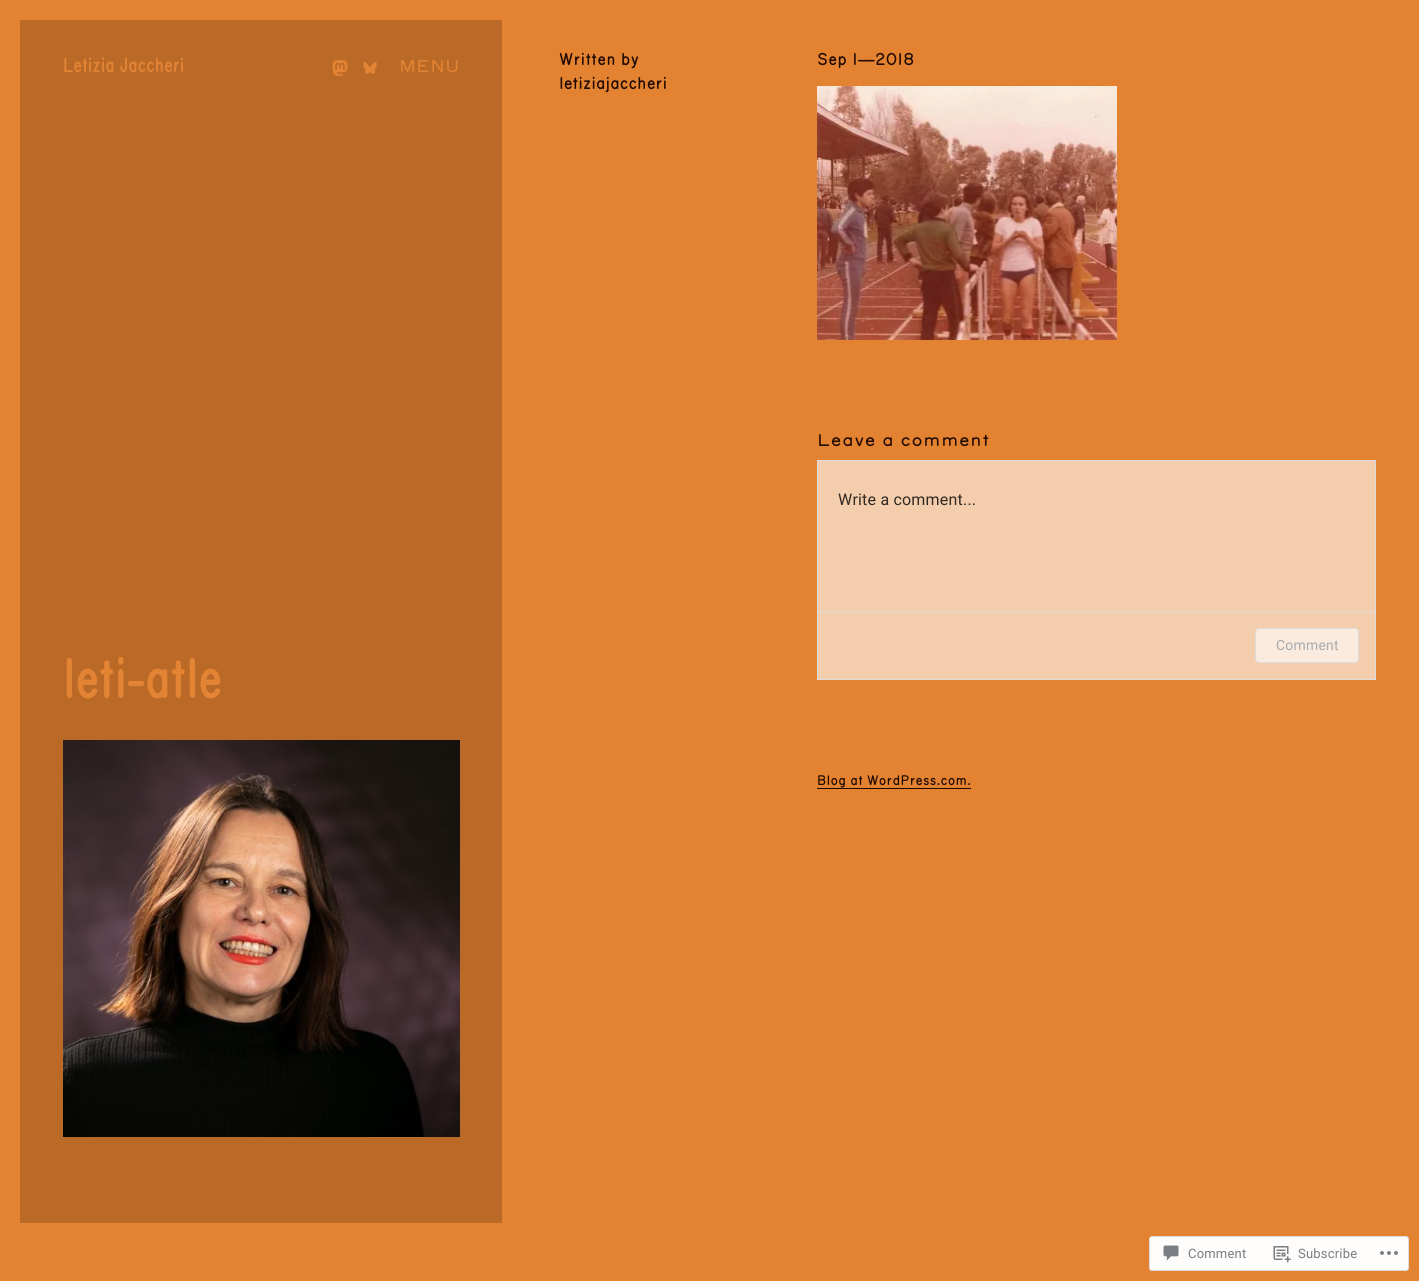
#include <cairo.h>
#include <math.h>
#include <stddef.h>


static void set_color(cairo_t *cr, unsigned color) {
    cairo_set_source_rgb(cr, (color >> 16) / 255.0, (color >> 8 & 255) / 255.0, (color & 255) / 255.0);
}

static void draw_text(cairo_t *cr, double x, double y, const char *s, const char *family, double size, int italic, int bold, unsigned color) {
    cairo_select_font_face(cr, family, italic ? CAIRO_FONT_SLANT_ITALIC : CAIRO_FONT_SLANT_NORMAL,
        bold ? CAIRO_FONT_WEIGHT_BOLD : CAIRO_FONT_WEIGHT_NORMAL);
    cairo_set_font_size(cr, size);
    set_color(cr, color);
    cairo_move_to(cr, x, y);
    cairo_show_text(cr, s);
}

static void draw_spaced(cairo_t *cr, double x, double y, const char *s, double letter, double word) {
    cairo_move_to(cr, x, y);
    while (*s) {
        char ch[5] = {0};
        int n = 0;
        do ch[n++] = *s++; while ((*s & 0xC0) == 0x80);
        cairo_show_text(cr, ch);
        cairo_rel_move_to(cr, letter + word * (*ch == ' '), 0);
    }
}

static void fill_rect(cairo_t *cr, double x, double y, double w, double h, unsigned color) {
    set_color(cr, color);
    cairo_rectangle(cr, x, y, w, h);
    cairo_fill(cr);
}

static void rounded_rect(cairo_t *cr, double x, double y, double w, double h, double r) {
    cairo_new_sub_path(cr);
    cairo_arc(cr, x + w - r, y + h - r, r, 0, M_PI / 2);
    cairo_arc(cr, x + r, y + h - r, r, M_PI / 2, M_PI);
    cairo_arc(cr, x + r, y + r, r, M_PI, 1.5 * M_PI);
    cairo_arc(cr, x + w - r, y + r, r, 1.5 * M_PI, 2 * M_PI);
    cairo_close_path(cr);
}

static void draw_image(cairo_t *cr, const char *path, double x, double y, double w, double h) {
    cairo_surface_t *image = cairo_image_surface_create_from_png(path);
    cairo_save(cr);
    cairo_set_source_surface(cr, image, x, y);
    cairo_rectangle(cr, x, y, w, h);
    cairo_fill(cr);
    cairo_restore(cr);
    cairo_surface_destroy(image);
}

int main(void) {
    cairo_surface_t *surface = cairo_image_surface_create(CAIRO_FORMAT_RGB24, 1419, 1281);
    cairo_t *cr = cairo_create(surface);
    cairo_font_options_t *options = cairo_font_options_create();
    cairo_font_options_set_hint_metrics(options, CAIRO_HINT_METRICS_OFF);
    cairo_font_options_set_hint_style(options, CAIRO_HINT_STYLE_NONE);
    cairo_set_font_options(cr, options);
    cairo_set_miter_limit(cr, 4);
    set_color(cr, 0xE38230);
    cairo_paint(cr);
    fill_rect(cr, 20, 20, 482, 1203, 0xBB6927);
    cairo_select_font_face(cr, "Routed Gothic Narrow", CAIRO_FONT_SLANT_NORMAL, CAIRO_FONT_WEIGHT_NORMAL);
    cairo_set_font_size(cr, 20);
    set_color(cr, 0xE38435);
    draw_spaced(cr, 63, 72, "Letizia Jaccheri", 0.25, 0);
    draw_image(cr, "assets/img1.png", 332, 60, 16, 16);
    draw_image(cr, "assets/img2.png", 363, 62, 14, 12);
    draw_text(cr, 399, 72, "MENU", "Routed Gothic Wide", 16.75, 0, 0, 0xE38435);
    draw_text(cr, 63, 698, "leti-atle", "Routed Gothic Narrow", 56, 0, 0, 0xE38435);
    draw_image(cr, "assets/img3.png", 63, 740, 397, 397);
    cairo_select_font_face(cr, "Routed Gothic", CAIRO_FONT_SLANT_NORMAL, CAIRO_FONT_WEIGHT_NORMAL);
    cairo_set_font_size(cr, 16.75);
    set_color(cr, 0x210A02);
    draw_spaced(cr, 559, 65, "Written by", 0.2, 0);
    draw_text(cr, 559, 89, "letiziajaccheri", "Routed Gothic", 16.75, 0, 0, 0x210A02);
    draw_spaced(cr, 817, 65, "Sep 1—2018", 0.2, 0);
    draw_image(cr, "assets/img4.png", 817, 86, 300, 254);
    cairo_select_font_face(cr, "Routed Gothic Wide", CAIRO_FONT_SLANT_NORMAL, CAIRO_FONT_WEIGHT_NORMAL);
    draw_spaced(cr, 817, 446, "Leave a comment", 0.2, 0);
    set_color(cr, 0xF4CDAC);
    cairo_rectangle(cr, 817.5, 460.5, 558, 219);
    cairo_fill_preserve(cr);
    set_color(cr, 0xDCDCDE);
    cairo_set_line_width(cr, 1);
    cairo_stroke(cr);
    cairo_select_font_face(cr, "Roboto", CAIRO_FONT_SLANT_NORMAL, CAIRO_FONT_WEIGHT_NORMAL);
    cairo_set_font_size(cr, 16);
    set_color(cr, 0x312922);
    draw_spaced(cr, 838, 505, "Write a comment...", 0.2, 0);
    fill_rect(cr, 818, 611, 557, 1, 0xDCDCDE);
    set_color(cr, 0xFBEBDE);
    rounded_rect(cr, 1255.5, 628.5, 103, 34, 3.5);
    cairo_fill_preserve(cr);
    set_color(cr, 0xDCDCDE);
    cairo_stroke(cr);
    cairo_set_font_size(cr, 14);
    set_color(cr, 0xA7AAAD);
    draw_spaced(cr, 1276, 650, "Comment", 0.2, 0);
    cairo_select_font_face(cr, "Routed Gothic", CAIRO_FONT_SLANT_NORMAL, CAIRO_FONT_WEIGHT_NORMAL);
    cairo_set_font_size(cr, 13.6);
    set_color(cr, 0x210A02);
    draw_spaced(cr, 817, 785, "Blog at WordPress.com.", 0.2, 0);
    fill_rect(cr, 817, 788, 154, 1, 0x210A02);
    set_color(cr, 0xFEFDFB);
    rounded_rect(cr, 1149.5, 1236.5, 259, 34, 2.5);
    cairo_fill_preserve(cr);
    set_color(cr, 0xDCDADB);
    cairo_stroke(cr);
    draw_image(cr, "assets/img5.png", 1163, 1245, 16, 16);
    cairo_select_font_face(cr, "Roboto", CAIRO_FONT_SLANT_NORMAL, CAIRO_FONT_WEIGHT_NORMAL);
    cairo_set_font_size(cr, 13);
    set_color(cr, 0x7A7C80);
    draw_spaced(cr, 1188, 1258, "Comment", 0.2, 0);
    draw_image(cr, "assets/img6.png", 1273, 1246, 18, 17);
    draw_spaced(cr, 1298, 1258, "Subscribe", 0.2, 0);
    draw_image(cr, "assets/img7.png", 1380, 1251, 18, 4);
    cairo_surface_write_to_png(surface, "output.png");
    cairo_font_options_destroy(options);
    cairo_destroy(cr);
    cairo_surface_destroy(surface);
    return 0;
}
